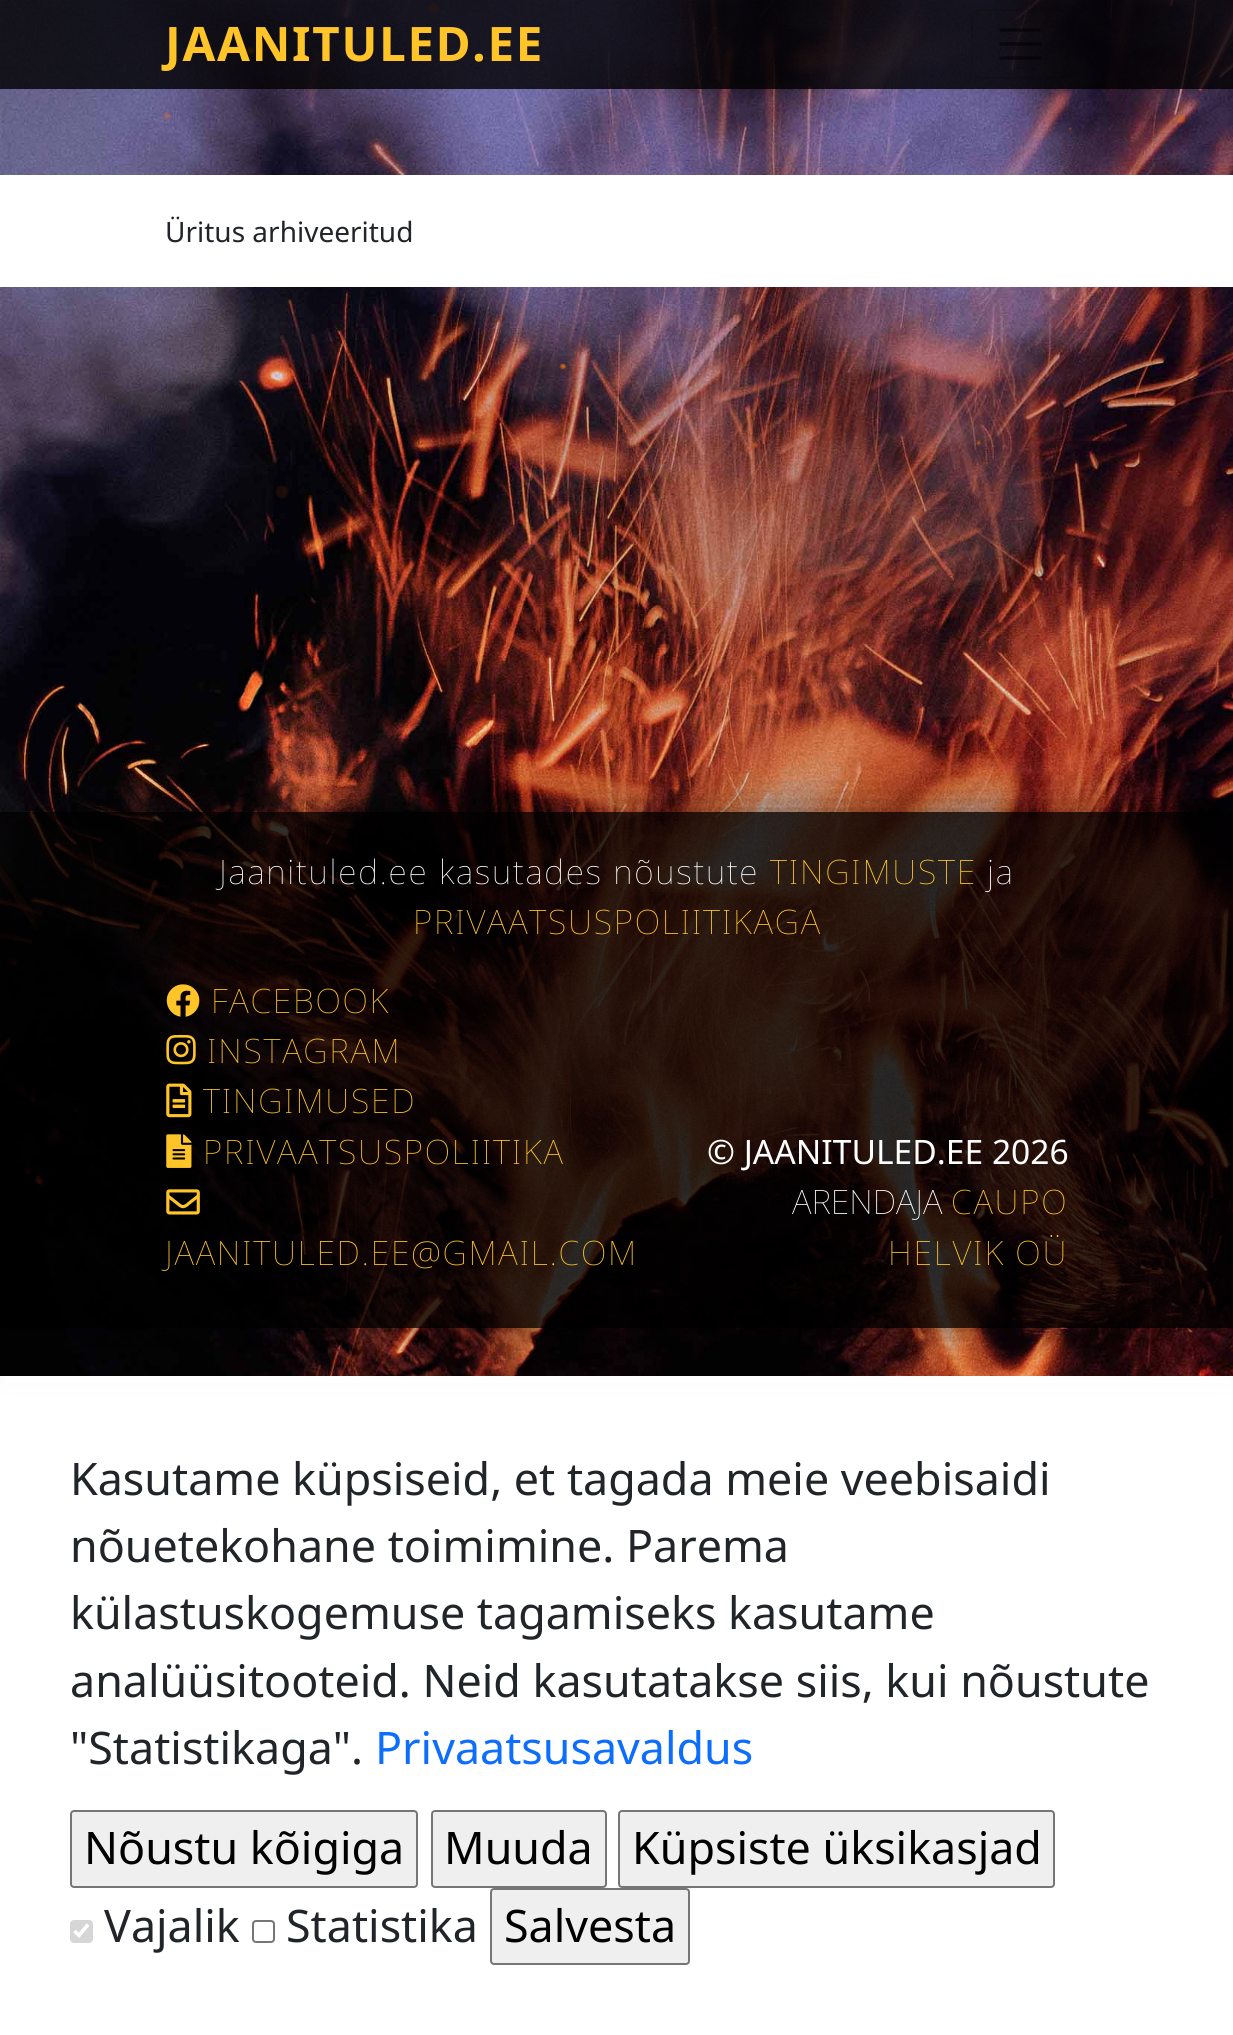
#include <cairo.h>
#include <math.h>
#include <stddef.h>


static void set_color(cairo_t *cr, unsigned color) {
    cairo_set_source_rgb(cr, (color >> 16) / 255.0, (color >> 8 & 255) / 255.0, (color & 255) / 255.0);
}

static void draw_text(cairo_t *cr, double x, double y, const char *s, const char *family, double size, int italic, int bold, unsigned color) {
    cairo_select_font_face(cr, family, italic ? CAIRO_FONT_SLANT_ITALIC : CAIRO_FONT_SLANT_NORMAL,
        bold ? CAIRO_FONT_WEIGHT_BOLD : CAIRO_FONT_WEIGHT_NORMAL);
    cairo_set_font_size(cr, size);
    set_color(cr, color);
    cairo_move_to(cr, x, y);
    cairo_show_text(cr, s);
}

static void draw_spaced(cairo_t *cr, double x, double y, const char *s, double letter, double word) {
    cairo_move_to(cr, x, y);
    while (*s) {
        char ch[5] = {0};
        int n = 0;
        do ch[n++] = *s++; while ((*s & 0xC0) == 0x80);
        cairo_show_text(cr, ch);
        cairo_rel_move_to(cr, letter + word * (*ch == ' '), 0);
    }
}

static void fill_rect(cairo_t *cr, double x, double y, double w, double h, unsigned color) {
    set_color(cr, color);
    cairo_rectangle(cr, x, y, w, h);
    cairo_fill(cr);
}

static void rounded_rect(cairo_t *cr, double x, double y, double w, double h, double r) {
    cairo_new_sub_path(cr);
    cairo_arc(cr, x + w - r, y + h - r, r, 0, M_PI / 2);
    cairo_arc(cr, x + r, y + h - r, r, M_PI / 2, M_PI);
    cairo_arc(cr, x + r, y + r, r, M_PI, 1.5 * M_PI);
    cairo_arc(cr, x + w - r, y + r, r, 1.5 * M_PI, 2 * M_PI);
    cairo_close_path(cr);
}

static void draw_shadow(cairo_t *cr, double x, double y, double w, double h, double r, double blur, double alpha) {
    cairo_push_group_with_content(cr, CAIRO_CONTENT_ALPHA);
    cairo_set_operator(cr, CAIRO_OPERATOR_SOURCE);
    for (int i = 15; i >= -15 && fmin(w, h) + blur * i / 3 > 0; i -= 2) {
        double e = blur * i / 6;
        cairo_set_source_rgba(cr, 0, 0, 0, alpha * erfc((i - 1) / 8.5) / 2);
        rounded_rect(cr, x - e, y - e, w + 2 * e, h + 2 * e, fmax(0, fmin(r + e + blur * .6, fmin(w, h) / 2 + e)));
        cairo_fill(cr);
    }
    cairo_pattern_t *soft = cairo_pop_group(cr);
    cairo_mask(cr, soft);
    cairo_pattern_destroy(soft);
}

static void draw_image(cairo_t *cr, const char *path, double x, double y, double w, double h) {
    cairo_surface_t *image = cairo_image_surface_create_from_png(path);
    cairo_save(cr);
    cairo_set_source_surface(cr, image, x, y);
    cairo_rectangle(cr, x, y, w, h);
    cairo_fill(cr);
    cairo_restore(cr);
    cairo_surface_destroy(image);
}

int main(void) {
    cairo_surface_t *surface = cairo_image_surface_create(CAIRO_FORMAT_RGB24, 1233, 2035);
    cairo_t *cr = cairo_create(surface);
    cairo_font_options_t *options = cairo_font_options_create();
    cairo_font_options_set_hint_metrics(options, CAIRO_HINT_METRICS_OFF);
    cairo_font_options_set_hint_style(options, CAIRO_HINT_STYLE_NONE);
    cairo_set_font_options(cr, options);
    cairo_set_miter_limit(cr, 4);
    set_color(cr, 0xFFFFFF);
    cairo_paint(cr);
    draw_image(cr, "assets/img1.png", 0, 0, 1233, 1376);
    draw_image(cr, "assets/img2.png", 164, 2, 1051, 594);
    cairo_set_source_rgba(cr, 0, 0, 0, 0.8);
    cairo_rectangle(cr, 0, 0, 1233, 89);
    cairo_fill(cr);
    cairo_select_font_face(cr, "Noto Sans", CAIRO_FONT_SLANT_NORMAL, CAIRO_FONT_WEIGHT_BOLD);
    cairo_set_font_size(cr, 47.5);
    set_color(cr, 0xFFC528);
    draw_spaced(cr, 165, 61, "JAANITULED.EE", 1.75, 0);
    rounded_rect(cr, 972, 10, 96, 68, 10);
    cairo_set_source_rgba(cr, 0, 0, 0, 0.1);
    cairo_stroke(cr);
    cairo_new_path(cr);
    cairo_move_to(cr, 1001, 30);
    cairo_line_to(cr, 1039.5, 30);
    cairo_move_to(cr, 1001, 44);
    cairo_line_to(cr, 1039.5, 44);
    cairo_move_to(cr, 1001, 58);
    cairo_line_to(cr, 1039.5, 58);
    cairo_set_source_rgba(cr, 0, 0, 0, 0.55);
    cairo_set_line_width(cr, 3.5);
    cairo_set_line_cap(cr, CAIRO_LINE_CAP_ROUND);
    cairo_stroke(cr);
    fill_rect(cr, 0, 175, 1233, 112, 0xFFFFFF);
    draw_text(cr, 165, 242, "Üritus arhiveeritud", "Noto Sans", 28, 0, 0, 0x212529);
    cairo_save(cr);
    cairo_set_fill_rule(cr, CAIRO_FILL_RULE_EVEN_ODD);
    cairo_new_path(cr);
    cairo_move_to(cr, 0, 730);
    cairo_line_to(cr, 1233, 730);
    cairo_line_to(cr, 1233, 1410);
    cairo_line_to(cr, 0, 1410);
    cairo_close_path(cr);
    cairo_move_to(cr, 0, 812);
    cairo_line_to(cr, 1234, 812);
    cairo_line_to(cr, 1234, 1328);
    cairo_line_to(cr, 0, 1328);
    cairo_close_path(cr);
    cairo_clip(cr);
    set_color(cr, 0x000000);
    draw_shadow(cr, 0, 812, 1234, 516, 0, 27, 0.5);
    cairo_restore(cr);
    cairo_set_source_rgba(cr, 0, 0, 0, 0.8);
    cairo_rectangle(cr, 0, 812, 1233, 516);
    cairo_fill(cr);
    cairo_select_font_face(cr, "Noto Sans Thin", CAIRO_FONT_SLANT_NORMAL, CAIRO_FONT_WEIGHT_NORMAL);
    cairo_set_font_size(cr, 33.6);
    set_color(cr, 0xFFFFFF);
    draw_spaced(cr, 219, 884, "Jaanituled.ee kasutades nõustute", 1.75, 0);
    set_color(cr, 0xFFC528);
    draw_spaced(cr, 770, 884, "TINGIMUSTE", 1.75, 0);
    set_color(cr, 0xFFFFFF);
    draw_spaced(cr, 987, 884, "ja", 1.75, 0);
    set_color(cr, 0xFFC528);
    draw_spaced(cr, 413, 934, "PRIVAATSUSPOLIITIKAGA", 1.75, 0);
    draw_image(cr, "assets/img3.png", 166, 984, 34, 33);
    draw_spaced(cr, 211, 1013, "FACEBOOK", 1.75, 0);
    draw_image(cr, "assets/img4.png", 166, 1034, 30, 31);
    draw_spaced(cr, 207, 1063, "INSTAGRAM", 1.75, 0);
    draw_image(cr, "assets/img5.png", 166, 1083, 26, 35);
    draw_spaced(cr, 203, 1113, "TINGIMUSED", 1.75, 0);
    draw_image(cr, "assets/img6.png", 166, 1134, 26, 34);
    draw_spaced(cr, 203, 1164, "PRIVAATSUSPOLIITIKA", 1.75, 0);
    draw_image(cr, "assets/img7.png", 166, 1189, 34, 26);
    draw_spaced(cr, 165, 1265, "JAANITULED.EE@GMAIL.COM", 1.75, 0);
    draw_text(cr, 707, 1164, "© JAANITULED.EE 2026", "Noto Sans", 33.6, 0, 0, 0xFFFFFF);
    draw_text(cr, 792, 1214, "ARENDAJA", "Noto Sans Thin", 33.6, 0, 0, 0xFFFFFF);
    set_color(cr, 0xFFC528);
    draw_spaced(cr, 951, 1214, "CAUPO", 1.75, 0);
    draw_spaced(cr, 888, 1265, "HELVIK OÜ", 1.75, 0);
    fill_rect(cr, 4, 1376, 1226, 7, 0xFFFFFF);
    draw_text(cr, 70, 1495, "Kasutame küpsiseid, et tagada meie veebisaidi", "Noto Sans", 44.8, 0, 0, 0x212529);
    draw_text(cr, 70, 1562, "nõuetekohane toimimine. Parema", "Noto Sans", 44.8, 0, 0, 0x212529);
    draw_text(cr, 70, 1629, "külastuskogemuse tagamiseks kasutame", "Noto Sans", 44.8, 0, 0, 0x212529);
    draw_text(cr, 70, 1697, "analüüsitooteid. Neid kasutatakse siis, kui nõustute", "Noto Sans", 44.8, 0, 0, 0x212529);
    draw_text(cr, 70, 1764, "\"Statistikaga\".", "Noto Sans", 44.8, 0, 0, 0x212529);
    draw_text(cr, 375, 1764, "Privaatsusavaldus", "Noto Sans", 44.8, 0, 0, 0x0D6EFD);
    set_color(cr, 0xEFEFEF);
    rounded_rect(cr, 71, 1811, 346, 76, 3);
    cairo_fill_preserve(cr);
    set_color(cr, 0x767676);
    cairo_set_line_width(cr, 2);
    cairo_set_line_cap(cr, CAIRO_LINE_CAP_BUTT);
    cairo_stroke(cr);
    draw_text(cr, 84, 1864, "Nõustu kõigiga", "Noto Sans", 44.8, 0, 0, 0x000000);
    set_color(cr, 0xEFEFEF);
    rounded_rect(cr, 432, 1811, 174, 76, 3);
    cairo_fill_preserve(cr);
    set_color(cr, 0x767676);
    cairo_stroke(cr);
    draw_text(cr, 444, 1864, "Muuda", "Noto Sans", 44.8, 0, 0, 0x000000);
    set_color(cr, 0xEFEFEF);
    rounded_rect(cr, 619, 1811, 435, 76, 3);
    cairo_fill_preserve(cr);
    set_color(cr, 0x767676);
    cairo_stroke(cr);
    draw_text(cr, 632, 1864, "Küpsiste üksikasjad", "Noto Sans", 44.8, 0, 0, 0x000000);
    set_color(cr, 0xD6D6D6);
    rounded_rect(cr, 70, 1920, 23, 23, 4);
    cairo_fill(cr);
    cairo_new_path(cr);
    cairo_move_to(cr, 74.5, 1931);
    cairo_line_to(cr, 79, 1935.5);
    cairo_line_to(cr, 88, 1924.5);
    set_color(cr, 0xFFFFFF);
    cairo_set_line_width(cr, 3.6);
    cairo_stroke(cr);
    draw_text(cr, 104, 1942, "Vajalik", "Noto Sans", 44.8, 0, 0, 0x212529);
    rounded_rect(cr, 253, 1921, 21, 21, 3);
    set_color(cr, 0x767676);
    cairo_set_line_width(cr, 2);
    cairo_stroke(cr);
    draw_text(cr, 286, 1942, "Statistika", "Noto Sans", 44.8, 0, 0, 0x212529);
    set_color(cr, 0xEFEFEF);
    rounded_rect(cr, 491, 1889, 198, 75, 3);
    cairo_fill_preserve(cr);
    set_color(cr, 0x767676);
    cairo_stroke(cr);
    draw_text(cr, 504, 1942, "Salvesta", "Noto Sans", 44.8, 0, 0, 0x000000);
    cairo_surface_write_to_png(surface, "output.png");
    cairo_font_options_destroy(options);
    cairo_destroy(cr);
    cairo_surface_destroy(surface);
    return 0;
}
